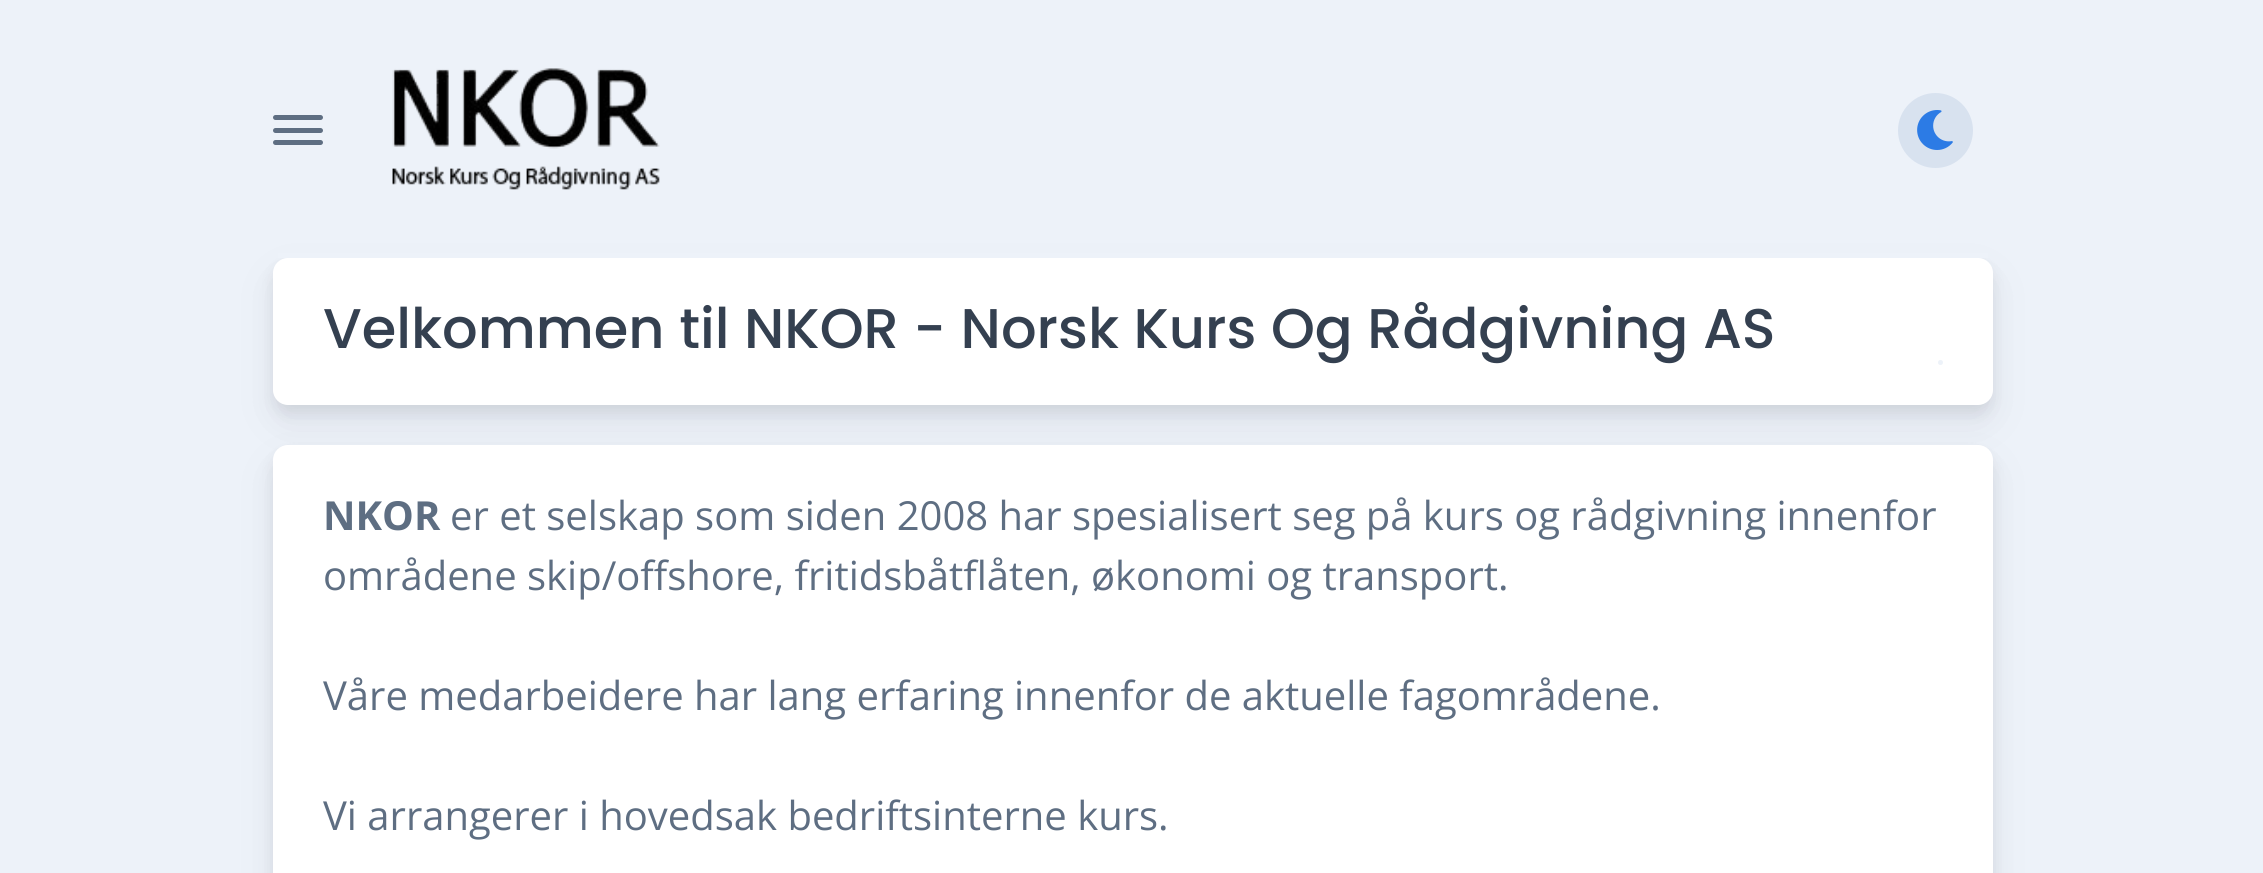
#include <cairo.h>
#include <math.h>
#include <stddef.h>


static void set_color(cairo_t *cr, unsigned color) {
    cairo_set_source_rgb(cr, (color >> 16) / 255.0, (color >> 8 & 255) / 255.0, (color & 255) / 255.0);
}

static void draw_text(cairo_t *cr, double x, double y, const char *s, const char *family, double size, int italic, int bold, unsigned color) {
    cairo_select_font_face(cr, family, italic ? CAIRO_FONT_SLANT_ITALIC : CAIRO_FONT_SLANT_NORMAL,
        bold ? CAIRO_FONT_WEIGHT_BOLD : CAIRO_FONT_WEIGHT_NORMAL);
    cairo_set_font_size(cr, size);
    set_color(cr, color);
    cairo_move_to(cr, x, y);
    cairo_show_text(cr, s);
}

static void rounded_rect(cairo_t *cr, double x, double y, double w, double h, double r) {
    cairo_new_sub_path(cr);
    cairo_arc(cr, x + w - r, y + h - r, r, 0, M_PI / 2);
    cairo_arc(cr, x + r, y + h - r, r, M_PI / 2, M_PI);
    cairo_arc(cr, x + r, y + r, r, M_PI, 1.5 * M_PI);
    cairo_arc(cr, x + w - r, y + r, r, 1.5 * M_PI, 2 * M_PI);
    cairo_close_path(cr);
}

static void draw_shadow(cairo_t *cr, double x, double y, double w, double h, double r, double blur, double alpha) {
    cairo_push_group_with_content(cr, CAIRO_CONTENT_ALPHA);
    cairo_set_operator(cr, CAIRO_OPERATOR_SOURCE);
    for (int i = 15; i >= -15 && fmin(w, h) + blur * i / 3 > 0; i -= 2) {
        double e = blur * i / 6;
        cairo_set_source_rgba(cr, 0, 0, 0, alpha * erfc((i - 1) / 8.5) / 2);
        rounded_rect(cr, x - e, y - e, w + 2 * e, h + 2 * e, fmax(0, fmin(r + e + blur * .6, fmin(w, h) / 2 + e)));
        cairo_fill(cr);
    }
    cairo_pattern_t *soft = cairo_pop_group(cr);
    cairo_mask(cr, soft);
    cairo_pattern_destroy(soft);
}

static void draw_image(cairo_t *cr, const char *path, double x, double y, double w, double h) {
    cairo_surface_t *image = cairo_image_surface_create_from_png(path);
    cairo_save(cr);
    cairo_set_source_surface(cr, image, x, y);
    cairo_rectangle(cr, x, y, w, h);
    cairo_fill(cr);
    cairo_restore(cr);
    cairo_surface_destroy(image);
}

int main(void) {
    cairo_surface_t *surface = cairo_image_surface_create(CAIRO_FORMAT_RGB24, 2263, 873);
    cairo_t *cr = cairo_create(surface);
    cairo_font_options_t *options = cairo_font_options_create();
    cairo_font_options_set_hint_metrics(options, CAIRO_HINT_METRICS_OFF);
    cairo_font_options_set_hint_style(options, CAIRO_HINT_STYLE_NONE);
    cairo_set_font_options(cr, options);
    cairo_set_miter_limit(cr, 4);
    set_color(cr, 0xEDF2F9);
    cairo_paint(cr);
    set_color(cr, 0x000000);
    draw_shadow(cr, 273, 265, 1720, 148, 15, 7.5, 0.07);
    set_color(cr, 0x414558);
    draw_shadow(cr, 273, 275, 1720, 148, 15, 17.5, 0.1);
    cairo_set_source_rgba(cr, 0.929, 0.949, 0.976, 0.96);
    cairo_rectangle(cr, 278, 253, 1710, 5);
    cairo_fill(cr);
    set_color(cr, 0x5E6E82);
    rounded_rect(cr, 273, 115, 50, 5, 2.5);
    cairo_fill(cr);
    rounded_rect(cr, 273, 128, 50, 5, 2.5);
    cairo_fill(cr);
    rounded_rect(cr, 273, 140, 50, 5, 2.5);
    cairo_fill(cr);
    draw_image(cr, "assets/img1.png", 392, 68, 268, 122);
    set_color(cr, 0xD8E2EF);
    cairo_arc(cr, 1935.5, 130.5, 37.5, 0, 2 * M_PI);
    cairo_fill(cr);
    draw_image(cr, "assets/img2.png", 1917, 110, 36, 40);
    set_color(cr, 0xFFFFFF);
    rounded_rect(cr, 273, 258, 1720, 147, 15);
    cairo_fill(cr);
    draw_text(cr, 323, 348, "Velkommen til NKOR - Norsk Kurs Og Rådgivning AS", "Poppins Medium", 55.9, 0, 0, 0x344050);
    set_color(cr, 0xEDF2F9);
    cairo_new_path(cr);
    cairo_arc(cr, 1940.5, 362.5, 2.5, 0, 2 * M_PI);
    cairo_fill(cr);
    set_color(cr, 0x000000);
    draw_shadow(cr, 273, 453, 1720, 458, 15, 7.5, 0.07);
    set_color(cr, 0x414558);
    draw_shadow(cr, 273, 463, 1720, 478, 15, 17.5, 0.1);
    set_color(cr, 0xFFFFFF);
    rounded_rect(cr, 273, 445, 1720, 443, 15);
    cairo_fill(cr);
    draw_text(cr, 323, 530, "NKOR", "Open Sans", 40, 0, 1, 0x5E6E82);
    draw_text(cr, 450, 530, "er et selskap som siden 2008 har spesialisert seg på kurs og rådgivning innenfor", "Open Sans", 40, 0, 0, 0x5E6E82);
    draw_text(cr, 323, 590, "områdene skip/offshore, fritidsbåtflåten, økonomi og transport.", "Open Sans", 40, 0, 0, 0x5E6E82);
    draw_text(cr, 323, 710, "Våre medarbeidere har lang erfaring innenfor de aktuelle fagområdene.", "Open Sans", 40, 0, 0, 0x5E6E82);
    draw_text(cr, 323, 830, "Vi arrangerer i hovedsak bedriftsinterne kurs.", "Open Sans", 40, 0, 0, 0x5E6E82);
    cairo_surface_write_to_png(surface, "output.png");
    cairo_font_options_destroy(options);
    cairo_destroy(cr);
    cairo_surface_destroy(surface);
    return 0;
}
